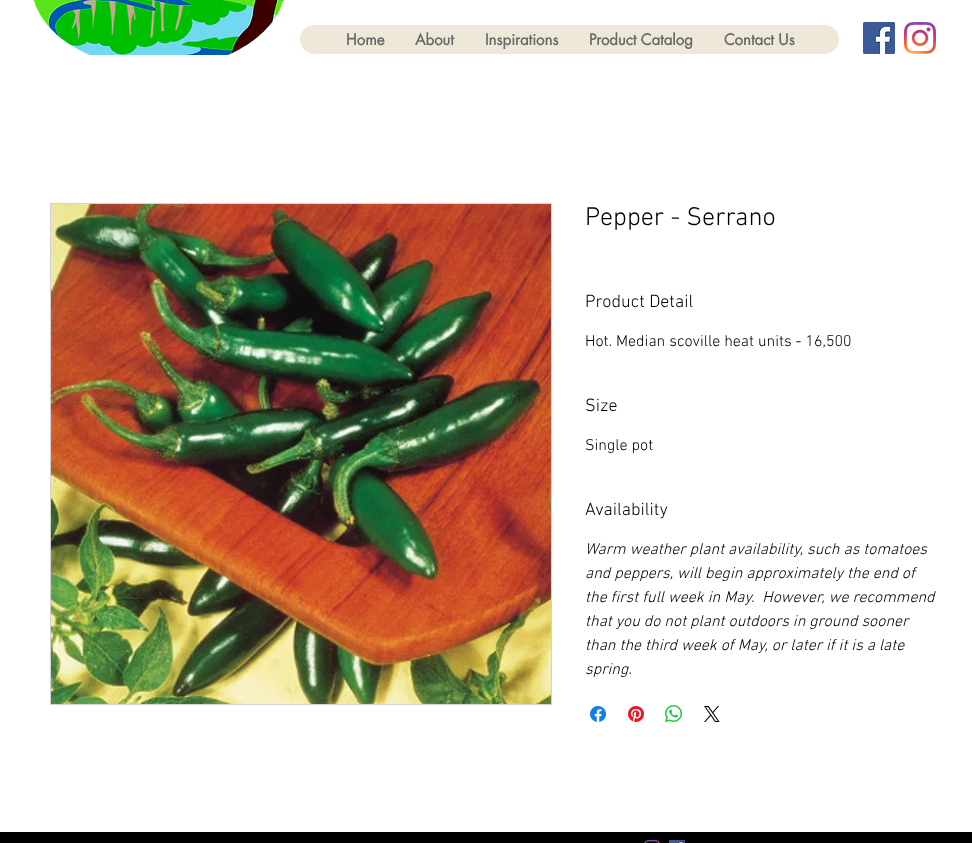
(async () => {
const canvas = document.querySelector("canvas")
canvas.width = 972
canvas.height = 843
const c = canvas.getContext("2d")
c.miterLimit = 4
c.fontKerning = "normal"
function T(s,x,y){c.fillText(s,x,y)}
function R(x,y,w,h){c.fillRect(x,y,w,h)}
function Q(x,y,w,h,r){c.beginPath();c.roundRect(x,y,w,h,r);c.fill()}
async function I(src,x,y,w,h){const img=new Image();img.src=src;await img.decode();c.drawImage(img,x,y,w,h)}
c.fillStyle="#fff"
R(0,0,972,843)
await I("1.png",33,0,251,55)
c.fillStyle="#eee8d8"
Q(300,25,539,29,14.5)
c.font="bold 15px futura"
c.fillStyle="#696969"
T("Home",346,45)
T("About",415,45)
T("Inspirations",485,45)
T("Product Catalog",589,45)
T("Contact Us",724,45)
await I("2.png",863,22,32,32)
await I("3.png",904,22,32,32)
c.strokeStyle="#d4d0d3"
c.strokeRect(50.5,203.5,501,501)
await I("4.png",51,204,500,500)
c.font="300 26px 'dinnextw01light'"
c.fillStyle="#000"
T("Pepper - Serrano",585,225)
c.font="300 18px 'dinnextw01light'"
T("Product Detail",585,307)
c.font="300 16px 'dinnextw01light'"
T("Hot. Median scoville heat units - 16,500",585,346)
c.font="300 18px 'dinnextw01light'"
T("Size",585,411)
c.font="300 16px 'dinnextw01light'"
T("Single pot",585,450)
c.font="300 18px 'dinnextw01light'"
T("Availability",585,515)
c.font="italic 300 16px 'dinnextw01light'"
T("Warm weather plant availability, such as tomatoes",585,554)
T("and peppers, will begin approximately the end of",585,578)
T("the first full week in May.  However, we recommend",585,602)
T("that you do not plant outdoors in ground sooner",585,626)
T("than the third week of May, or later if it is a late",585,650)
T("spring.",585,674)
await I("5.png",590,706,16,16)
await I("6.png",628,706,16,16)
await I("7.png",665,705,17,17)
await I("8.png",704,706,16,16)
R(0,832,972,11)
await I("9.png",644,840,16,3)
await I("10.png",669,840,16,3)
})()
